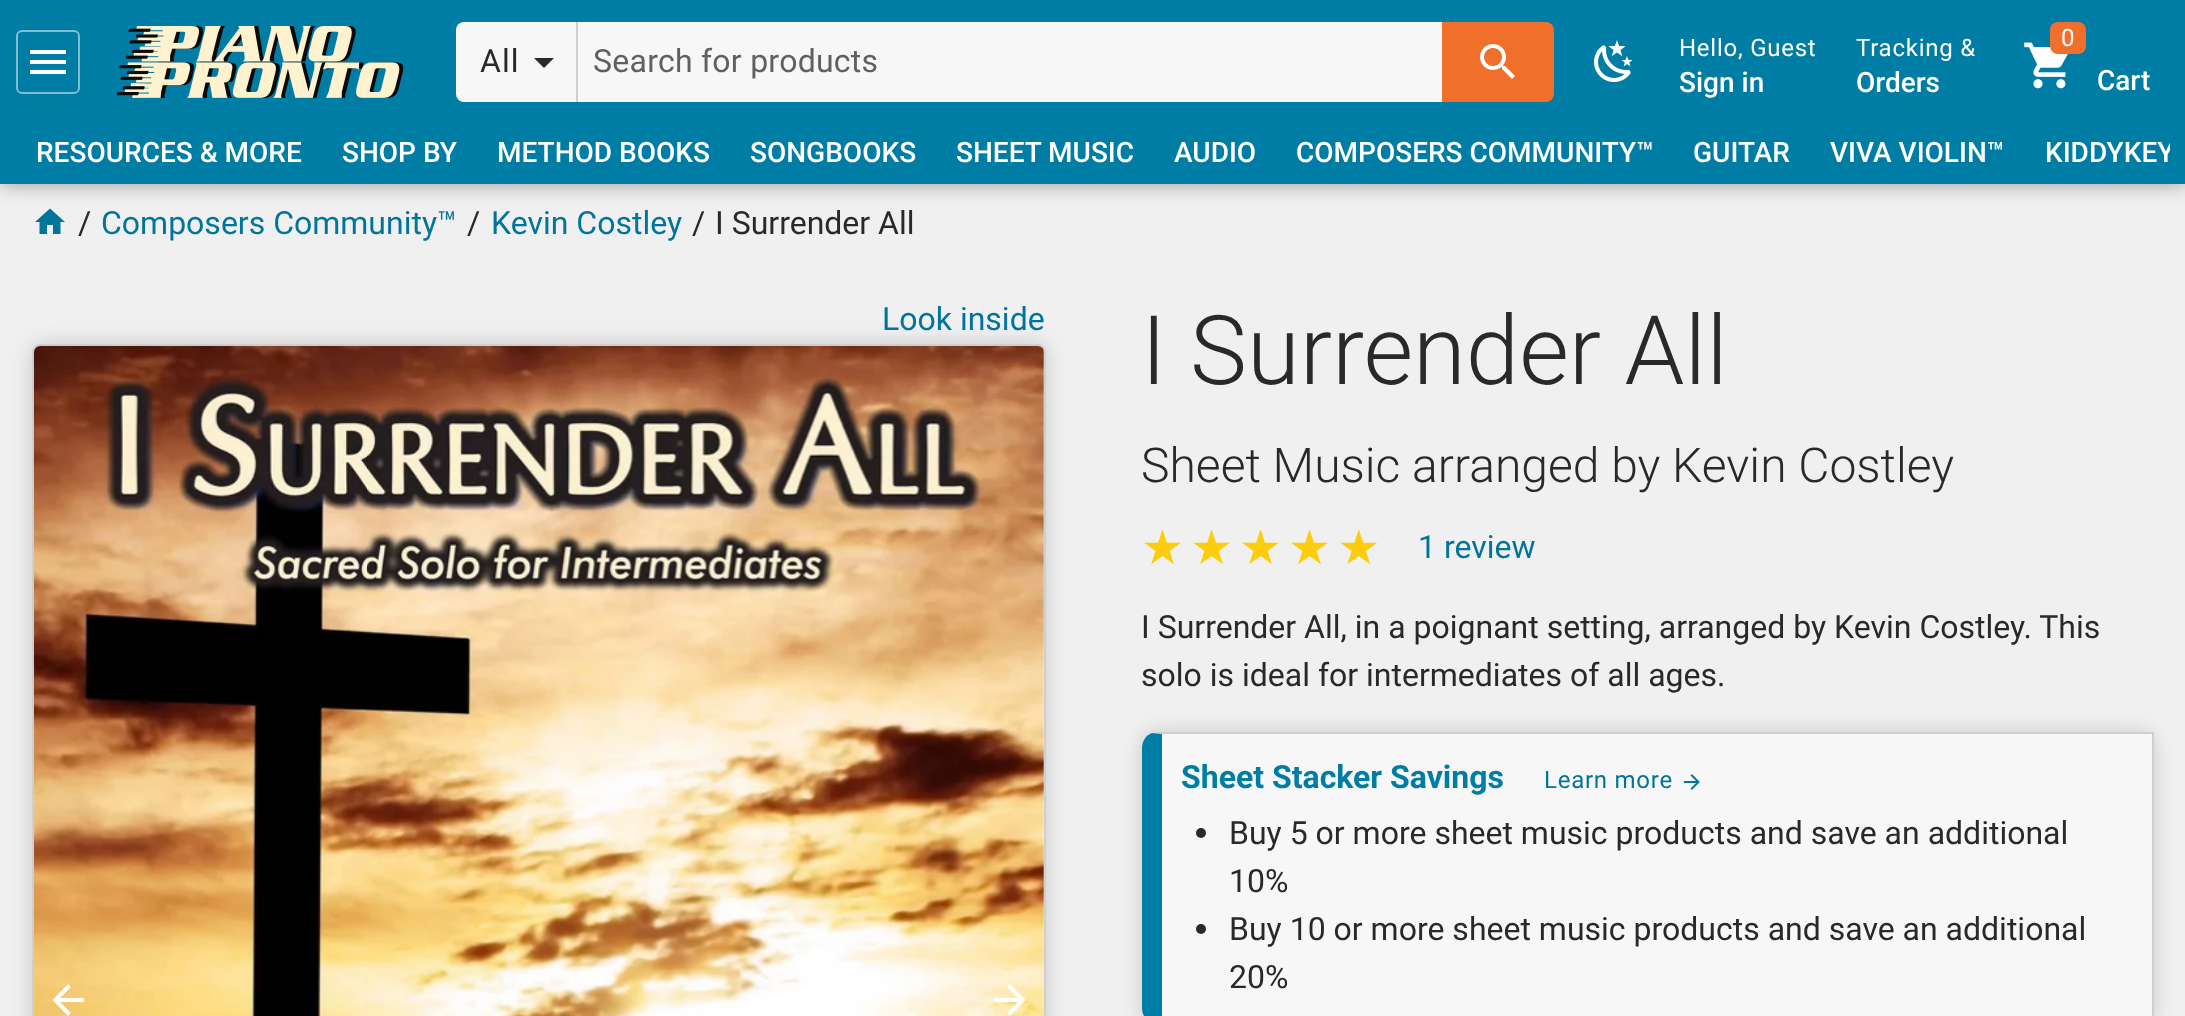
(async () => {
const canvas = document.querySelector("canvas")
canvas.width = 2185
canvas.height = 1016
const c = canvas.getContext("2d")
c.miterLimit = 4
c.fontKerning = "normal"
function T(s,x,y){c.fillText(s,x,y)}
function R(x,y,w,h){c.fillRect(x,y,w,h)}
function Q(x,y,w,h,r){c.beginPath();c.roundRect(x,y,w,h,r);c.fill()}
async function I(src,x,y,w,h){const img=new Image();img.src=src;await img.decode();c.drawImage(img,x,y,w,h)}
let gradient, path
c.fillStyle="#f0f0f0"
R(0,0,2185,1016)
await I("6.png",35,208,30,26)
c.fillStyle="#0000005c"
c.filter="blur(10px)"
c.beginPath()
c.rect(0,0,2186,184)
c.fill()
c.filter="none"
c.fillStyle="#007da5"
R(0,0,2185,184)
c.beginPath()
c.roundRect(17,31,62,62,5)
c.strokeStyle="#80bed2"
c.lineWidth=2
c.stroke()
await I("1.png",30,50,36,24)
await I("2.png",116,26,288,72)
c.fillStyle="#f7f7f7"
c.beginPath()
c.roundRect(456,22,122,80,[8,0,0,8])
c.fill()
c.fillStyle="#cfcfcf"
R(576,22,2,80)
c.letterSpacing="1px"
c.font="32px Roboto"
c.fillStyle="#292929"
T("All",480,72)
path = new Path2D("M534 58l10 10l10-10z")
c.fill(path)
c.fillStyle="#f7f7f7"
R(578,22,864,80)
c.letterSpacing="0.25px"
c.fillStyle="#606060"
T("Search for products",593,72)
c.fillStyle="#f0702b"
c.beginPath()
c.roundRect(1442,22,112,80,[0,8,8,0])
c.fill()
await I("3.png",1480,44,35,35)
await I("4.png",1594,40,39,42)
c.letterSpacing="0.75px"
c.font="24px Roboto"
c.fillStyle="#fff"
T("Hello, Guest",1679,56)
c.letterSpacing="0px"
c.font="500 28px Roboto"
T("Sign in",1679,92)
c.letterSpacing="0.75px"
c.font="24px Roboto"
T("Tracking &",1856,56)
c.letterSpacing="0px"
c.font="500 28px Roboto"
T("Orders",1856,92)
await I("5.png",2024,42,44,47)
c.fillStyle="#f0702b"
Q(2050,22,36,32,8)
c.font="24px Roboto"
c.fillStyle="#fff"
T("0",2061,46)
c.font="500 28px Roboto"
T("Cart",2097,90)
T("RESOURCES & MORE",36,162)
T("SHOP BY",342,162)
T("METHOD BOOKS",497,162)
T("SONGBOOKS",750,162)
T("SHEET MUSIC",956,162)
T("AUDIO",1174,162)
T("COMPOSERS COMMUNITY™",1296,162)
T("GUITAR",1693,162)
T("VIVA VIOLIN™",1830,162)
c.save()
c.beginPath()
c.rect(16,120,2154,64)
c.clip()
T("KIDDYKEY",2045,162)
c.restore()
c.font="32px Roboto"
c.fillStyle="#292929"
T("/",78,234)
c.fillStyle="#00759b"
T("Composers Community™",101,234)
c.fillStyle="#292929"
T("/",467,234)
c.fillStyle="#00759b"
T("Kevin Costley",491,234)
c.fillStyle="#292929"
T("/",692,234)
T("I Surrender All",715,234)
c.fillStyle="#00759b"
T("Look inside",882,330)
c.fillStyle="#00000029"
c.filter="blur(10px)"
c.beginPath()
c.roundRect(32,344,1014,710,8)
c.fill()
c.filter="none"
c.fillStyle="#f7f7f7"
Q(32,344,1014,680,8)
c.beginPath()
c.roundRect(33,345,1012,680,7)
c.strokeStyle="#00000029"
c.stroke()
await I("7.png",34,346,1010,670)
c.fillStyle="#fff"
path = new Path2D("M84 998v4h-24l11 11l-3 3l-15.5-16l15.5-16l3 3l-11 11z")
c.fill(path)
path = new Path2D("M994 998v4h24l-11 11l3 3l15.5-16l-15.5-16l-3 3l11 11z")
c.fill(path)
c.font="300 96px Roboto"
c.fillStyle="#292929"
T("I Surrender All",1141,384)
c.font="300 48px Roboto"
T("Sheet Music arranged by Kevin Costley",1141,482)
c.letterSpacing="6px"
c.font="48px DejaVu Sans"
gradient = c.createLinearGradient(1141,548,1386,548)
gradient.addColorStop(1,"#fdcc0d")
gradient.addColorStop(1,"#ccc")
c.fillStyle = gradient
T("★★★★★",1141,564)
c.letterSpacing="0px"
c.font="32px Roboto"
c.fillStyle="#00759b"
T("1 review",1418,558)
c.fillStyle="#292929"
T("I Surrender All, in a poignant setting, arranged by Kevin Costley. This",1141,638)
T("solo is ideal for intermediates of all ages.",1141,686)
c.fillStyle="#00000029"
c.filter="blur(10px)"
c.beginPath()
c.roundRect(1142,732,1012,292,16)
c.fill()
c.filter="none"
c.fillStyle="#f7f7f7"
path = new Path2D("M1158 732h996v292h-996c-9 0-16-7-16-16v-260c0-9 7-16 16-16z")
c.fill(path)
c.fillStyle="#cfcfcf"
path = new Path2D("M1158 732l-6 1l10 1h990l2-2z")
c.fill(path)
c.fillStyle="#00000029"
path = new Path2D("M2154 732l-2 2v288l2 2z")
c.fill(path)
c.fillStyle="#007da5"
path = new Path2D("M1162 734l-10-1c-6 2-10 8-10 15v260c0 7 4 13 10 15l10-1z")
c.fill(path)
c.font="bold 32px Roboto"
T("Sheet Stacker Savings",1181,788)
c.letterSpacing="0.75px"
c.font="24px Roboto"
c.fillStyle="#00759b"
T("Learn more",1544,788)
await I("8.png",1684,774,16,16)
c.fillStyle="#292929"
c.beginPath()
c.arc(1201,833,5,0,7)
c.fill()
c.letterSpacing="0px"
c.font="32px Roboto"
T("Buy 5 or more sheet music products and save an additional",1229,844)
T("10%",1229,892)
c.beginPath()
c.arc(1201,929,5,0,7)
c.fill()
T("Buy 10 or more sheet music products and save an additional",1229,940)
T("20%",1229,988)
})()
